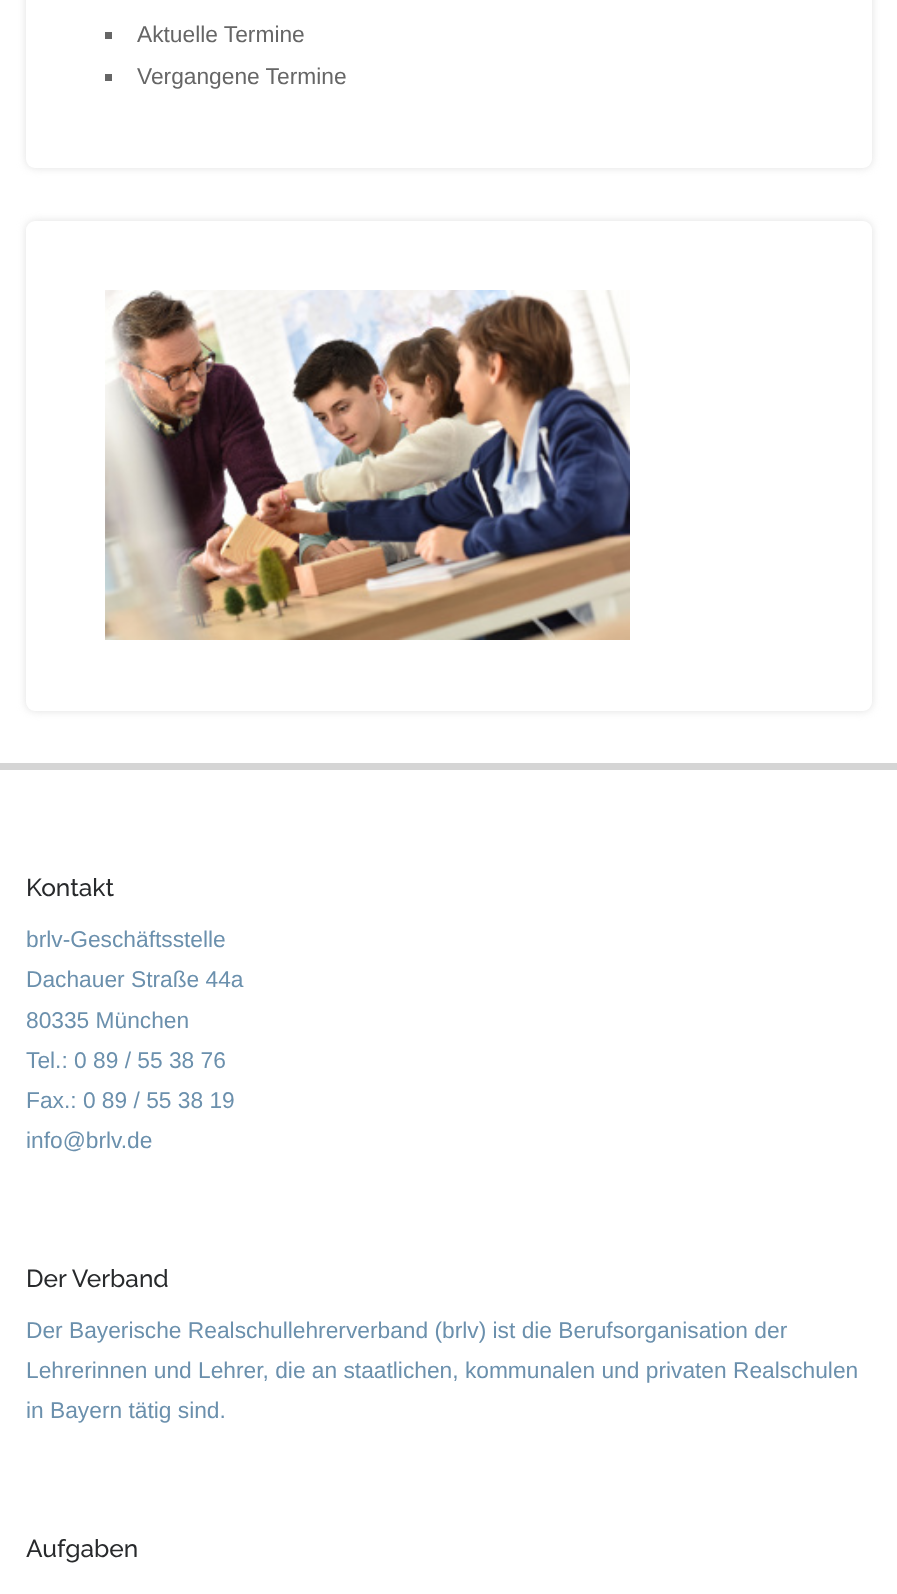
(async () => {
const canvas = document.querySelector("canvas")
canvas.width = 897
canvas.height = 1594
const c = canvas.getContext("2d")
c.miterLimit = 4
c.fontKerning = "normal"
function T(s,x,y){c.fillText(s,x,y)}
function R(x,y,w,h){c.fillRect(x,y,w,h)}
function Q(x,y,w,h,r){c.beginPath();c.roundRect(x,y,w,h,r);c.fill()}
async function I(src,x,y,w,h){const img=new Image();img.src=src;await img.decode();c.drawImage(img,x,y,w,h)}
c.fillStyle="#fff"
R(0,0,897,1594)
c.fillStyle="#e0e0e0"
c.filter="blur(4.5px)"
c.beginPath()
c.roundRect(26,-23,846,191,9)
c.fill()
c.filter="none"
c.fillStyle="#fff"
Q(26,-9,846,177,9)
c.fillStyle="#666"
R(105,32,7,7)
c.font="22.75px Liberation Sans"
T("Aktuelle Termine",137,42)
R(105,74,7,7)
T("Vergangene Termine",137,84)
c.fillStyle="#e0e0e0"
c.filter="blur(4.5px)"
c.beginPath()
c.roundRect(26,221,846,490,9)
c.fill()
c.filter="none"
c.fillStyle="#fff"
Q(26,221,846,490,9)
await I("1.png",105,290,525,350)
c.fillStyle="#d5d5d5"
R(0,763,897,7)
c.font="500 24.5px Raleway"
c.fillStyle="#282a2c"
T("Kontakt",26,896)
c.font="22.75px Liberation Sans"
c.fillStyle="#6b90ad"
T("brlv-Geschäftsstelle",26,947)
T("Dachauer Straße 44a",26,987)
T("80335 München",26,1028)
T("Tel.: 0 89 / 55 38 76",26,1068)
T("Fax.: 0 89 / 55 38 19",26,1108)
T("info@brlv.de",26,1148)
c.font="500 24.5px Raleway"
c.fillStyle="#282a2c"
T("Der Verband",26,1287)
c.font="22.75px Liberation Sans"
c.fillStyle="#6b90ad"
T("Der Bayerische Realschullehrerverband (brlv) ist die Berufsorganisation der",26,1338)
T("Lehrerinnen und Lehrer, die an staatlichen, kommunalen und privaten Realschulen",26,1378)
T("in Bayern tätig sind.",26,1418)
c.font="500 24.5px Raleway"
c.fillStyle="#282a2c"
T("Aufgaben",26,1557)
})()
